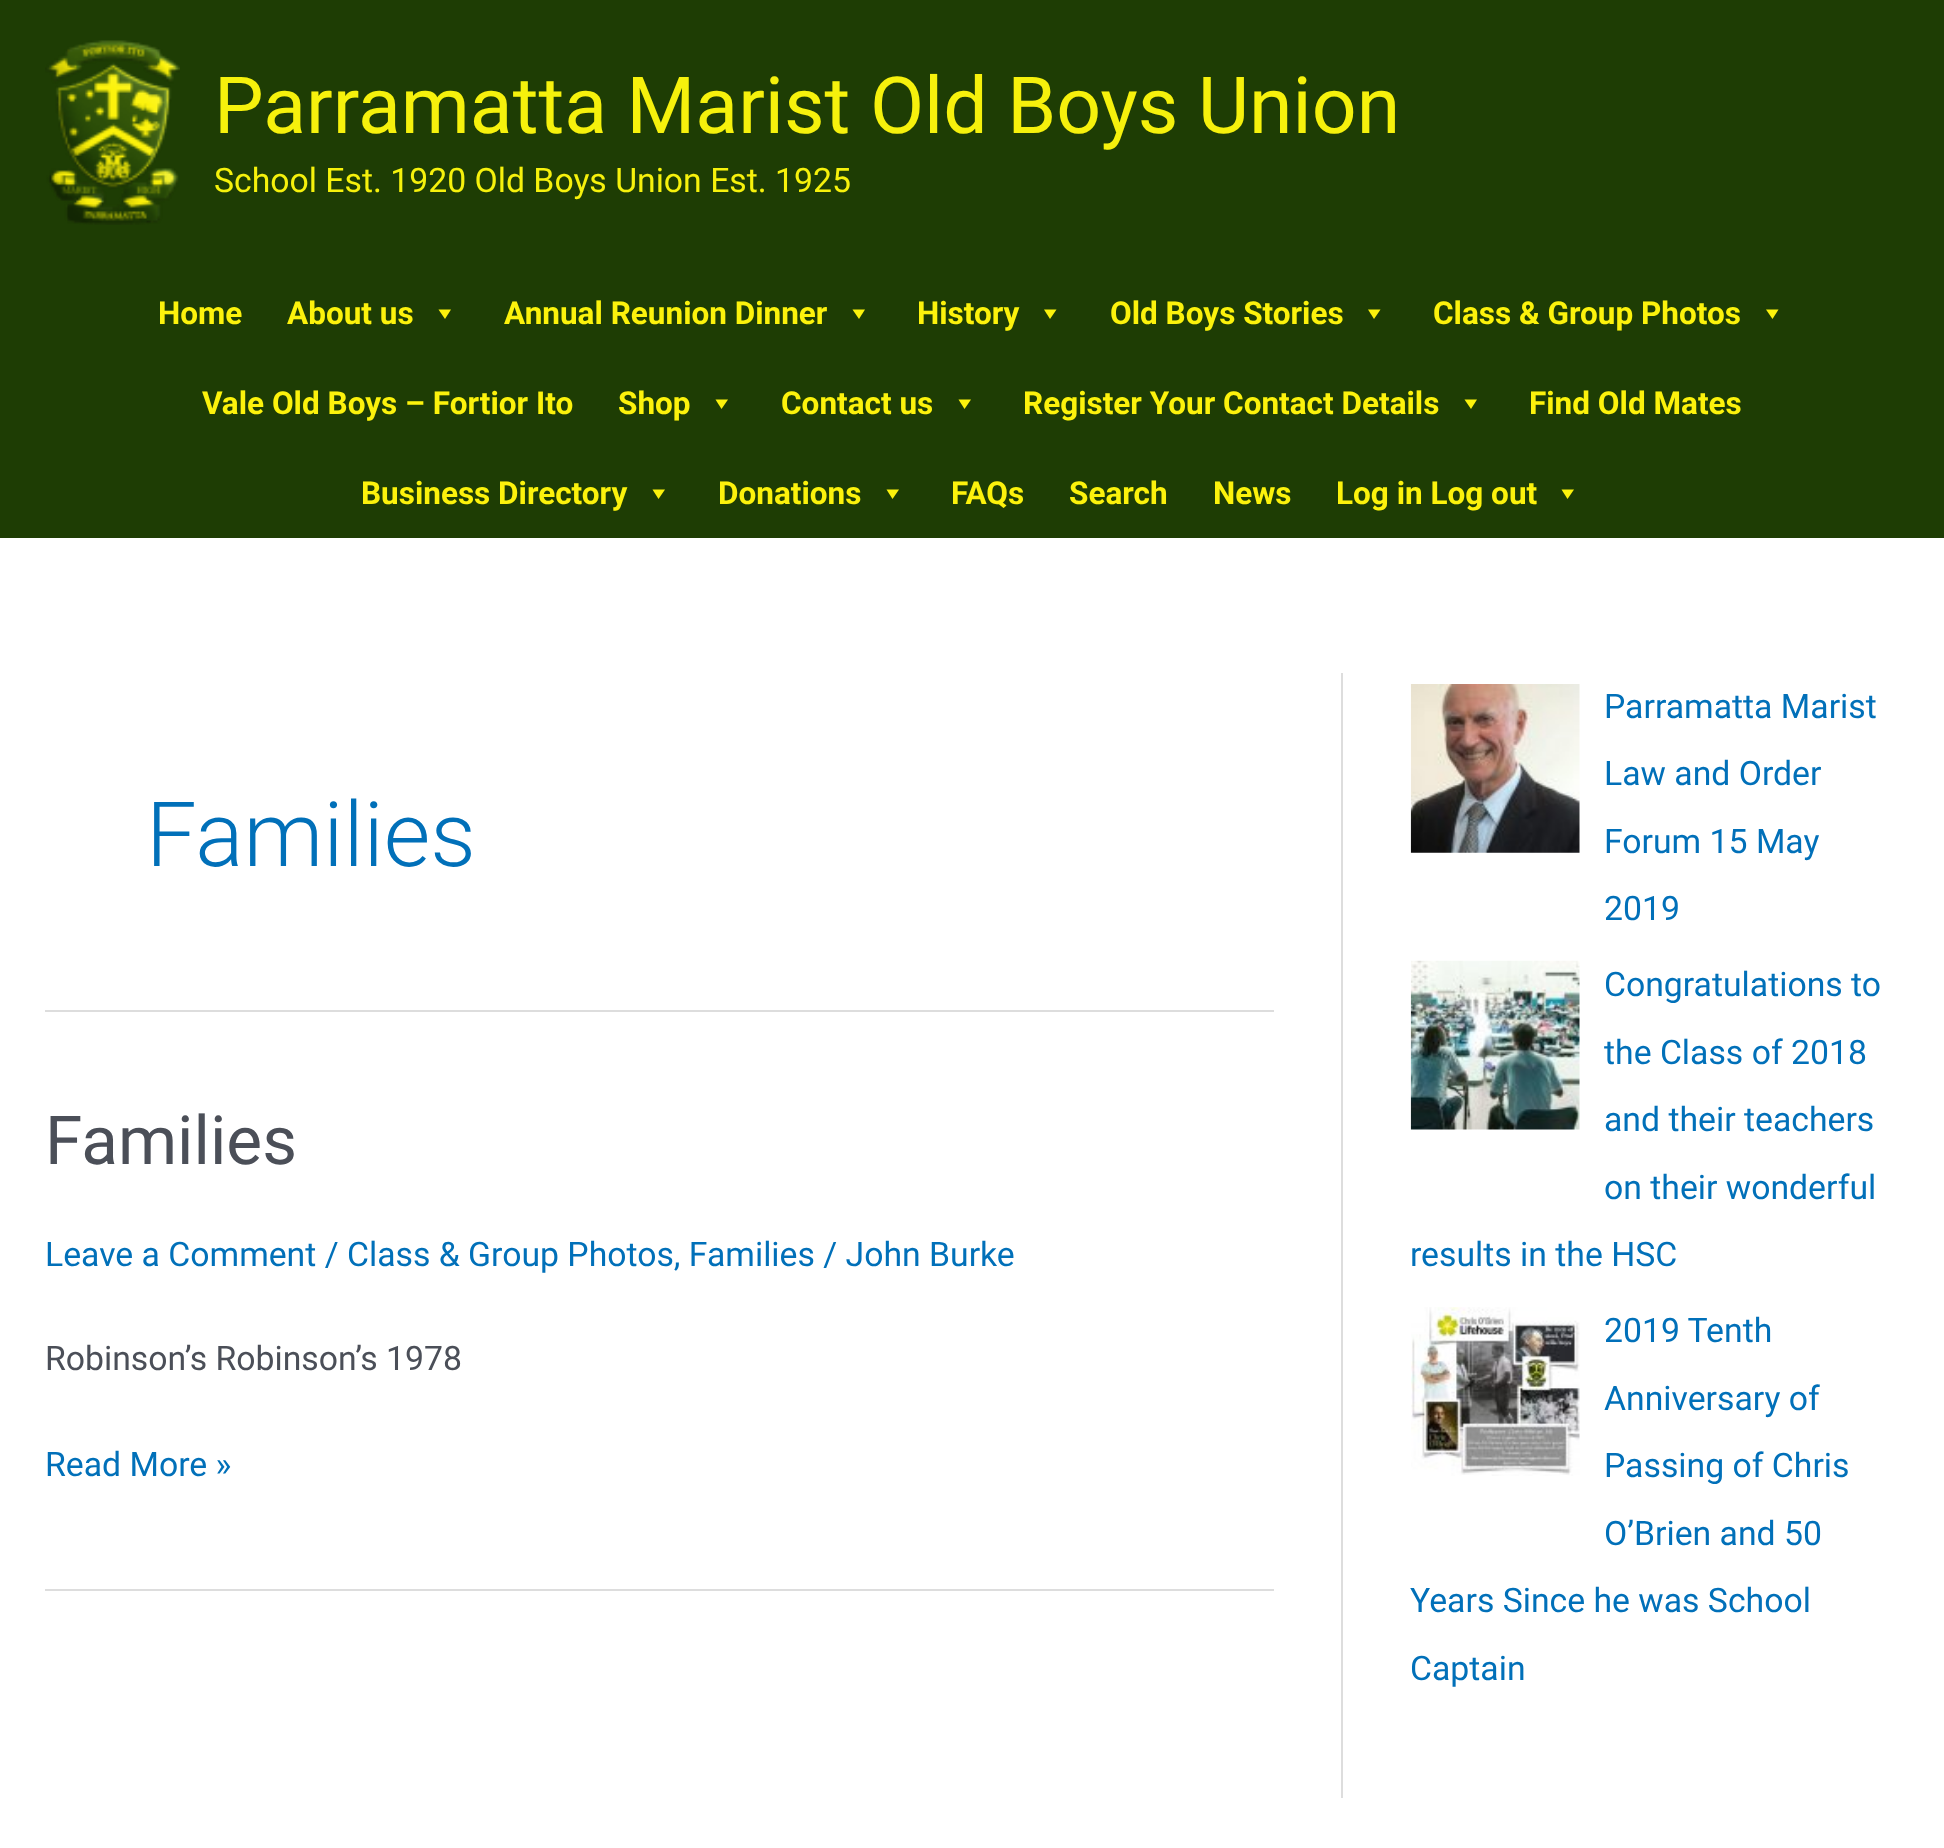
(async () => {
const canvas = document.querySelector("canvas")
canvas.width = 1944
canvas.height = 1848
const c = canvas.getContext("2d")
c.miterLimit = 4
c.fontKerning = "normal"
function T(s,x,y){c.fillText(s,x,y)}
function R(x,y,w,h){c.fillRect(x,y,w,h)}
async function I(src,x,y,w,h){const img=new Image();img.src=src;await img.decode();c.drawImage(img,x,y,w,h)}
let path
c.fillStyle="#fff"
R(0,0,1944,1848)
c.fillStyle="#1e3d04"
R(0,0,1944,538)
await I("1.png",45,40,135,185)
c.font="78.75px Roboto"
c.fillStyle="#f6f10c"
T("Parramatta Marist Old Boys Union",214,133)
c.font="33.75px Roboto"
T("School Est. 1920 Old Boys Union Est. 1925",214,192)
c.font="bold 31.5px Roboto"
c.fillStyle="#fcf20c"
T("Home",158,324)
T("About us",287,324)
path = new Path2D("M451 309.5l-6 9.5l-6.5-9.5z")
c.fill(path)
T("Annual Reunion Dinner",504,324)
path = new Path2D("M865 309.5l-6 9.5l-6.5-9.5z")
c.fill(path)
T("History",917,324)
path = new Path2D("M1056.5 309.5l-6.5 9.5l-6-9.5z")
c.fill(path)
T("Old Boys Stories",1110,324)
path = new Path2D("M1380.5 309.5l-6.5 9.5l-6-9.5z")
c.fill(path)
T("Class & Group Photos",1433,324)
path = new Path2D("M1778.5 309.5l-6 9.5l-6.5-9.5z")
c.fill(path)
T("Vale Old Boys – Fortior Ito",202,414)
T("Shop",618,414)
path = new Path2D("M728 399.5l-6.5 9.5l-6-9.5z")
c.fill(path)
T("Contact us",781,414)
path = new Path2D("M971 399.5l-6.5 9.5l-6-9.5z")
c.fill(path)
T("Register Your Contact Details",1023,414)
path = new Path2D("M1477 399.5l-6 9.5l-6.5-9.5z")
c.fill(path)
T("Find Old Mates",1529,414)
T("Business Directory",361,504)
path = new Path2D("M665 489.5l-6.5 9.5l-6-9.5z")
c.fill(path)
T("Donations",718,504)
path = new Path2D("M899 489.5l-6.5 9.5l-6-9.5z")
c.fill(path)
T("FAQs",951,504)
T("Search",1069,504)
T("News",1213,504)
T("Log in Log out",1336,504)
path = new Path2D("M1574 489.5l-6.5 9.5l-6-9.5z")
c.fill(path)
c.fillStyle="#ddd"
R(45,1010,1229,2)
c.font="300 90px Roboto"
c.fillStyle="#0170b9"
T("Families",146,866)
c.fillStyle="#ddd"
R(45,1589,1229,2)
c.font="67.5px Roboto"
c.fillStyle="#4b4f58"
T("Families",45,1164)
c.font="33.75px Roboto"
c.fillStyle="#0170b9"
T("Leave a Comment / Class & Group Photos, Families / John Burke",45,1266)
c.fillStyle="#4b4f58"
T("Robinson’s Robinson’s 1978",45,1370)
c.fillStyle="#0170b9"
T("Read More »",45,1476)
c.fillStyle="#ddd"
R(1341,673,2,1125)
await I("2.png",1410,684,170,169)
c.fillStyle="#0170b9"
T("Parramatta Marist",1604,718)
T("Law and Order",1604,785)
T("Forum 15 May",1604,853)
T("2019",1604,920)
await I("3.png",1410,960,170,170)
T("Congratulations to",1604,996)
T("the Class of 2018",1604,1064)
T("and their teachers",1604,1131)
T("on their wonderful",1604,1199)
T("results in the HSC",1410,1266)
await I("4.png",1411,1307,169,169)
T("2019 Tenth",1604,1342)
T("Anniversary of",1604,1410)
T("Passing of Chris",1604,1477)
T("O’Brien and 50",1604,1545)
T("Years Since he was School",1410,1612)
T("Captain",1410,1680)
})()
